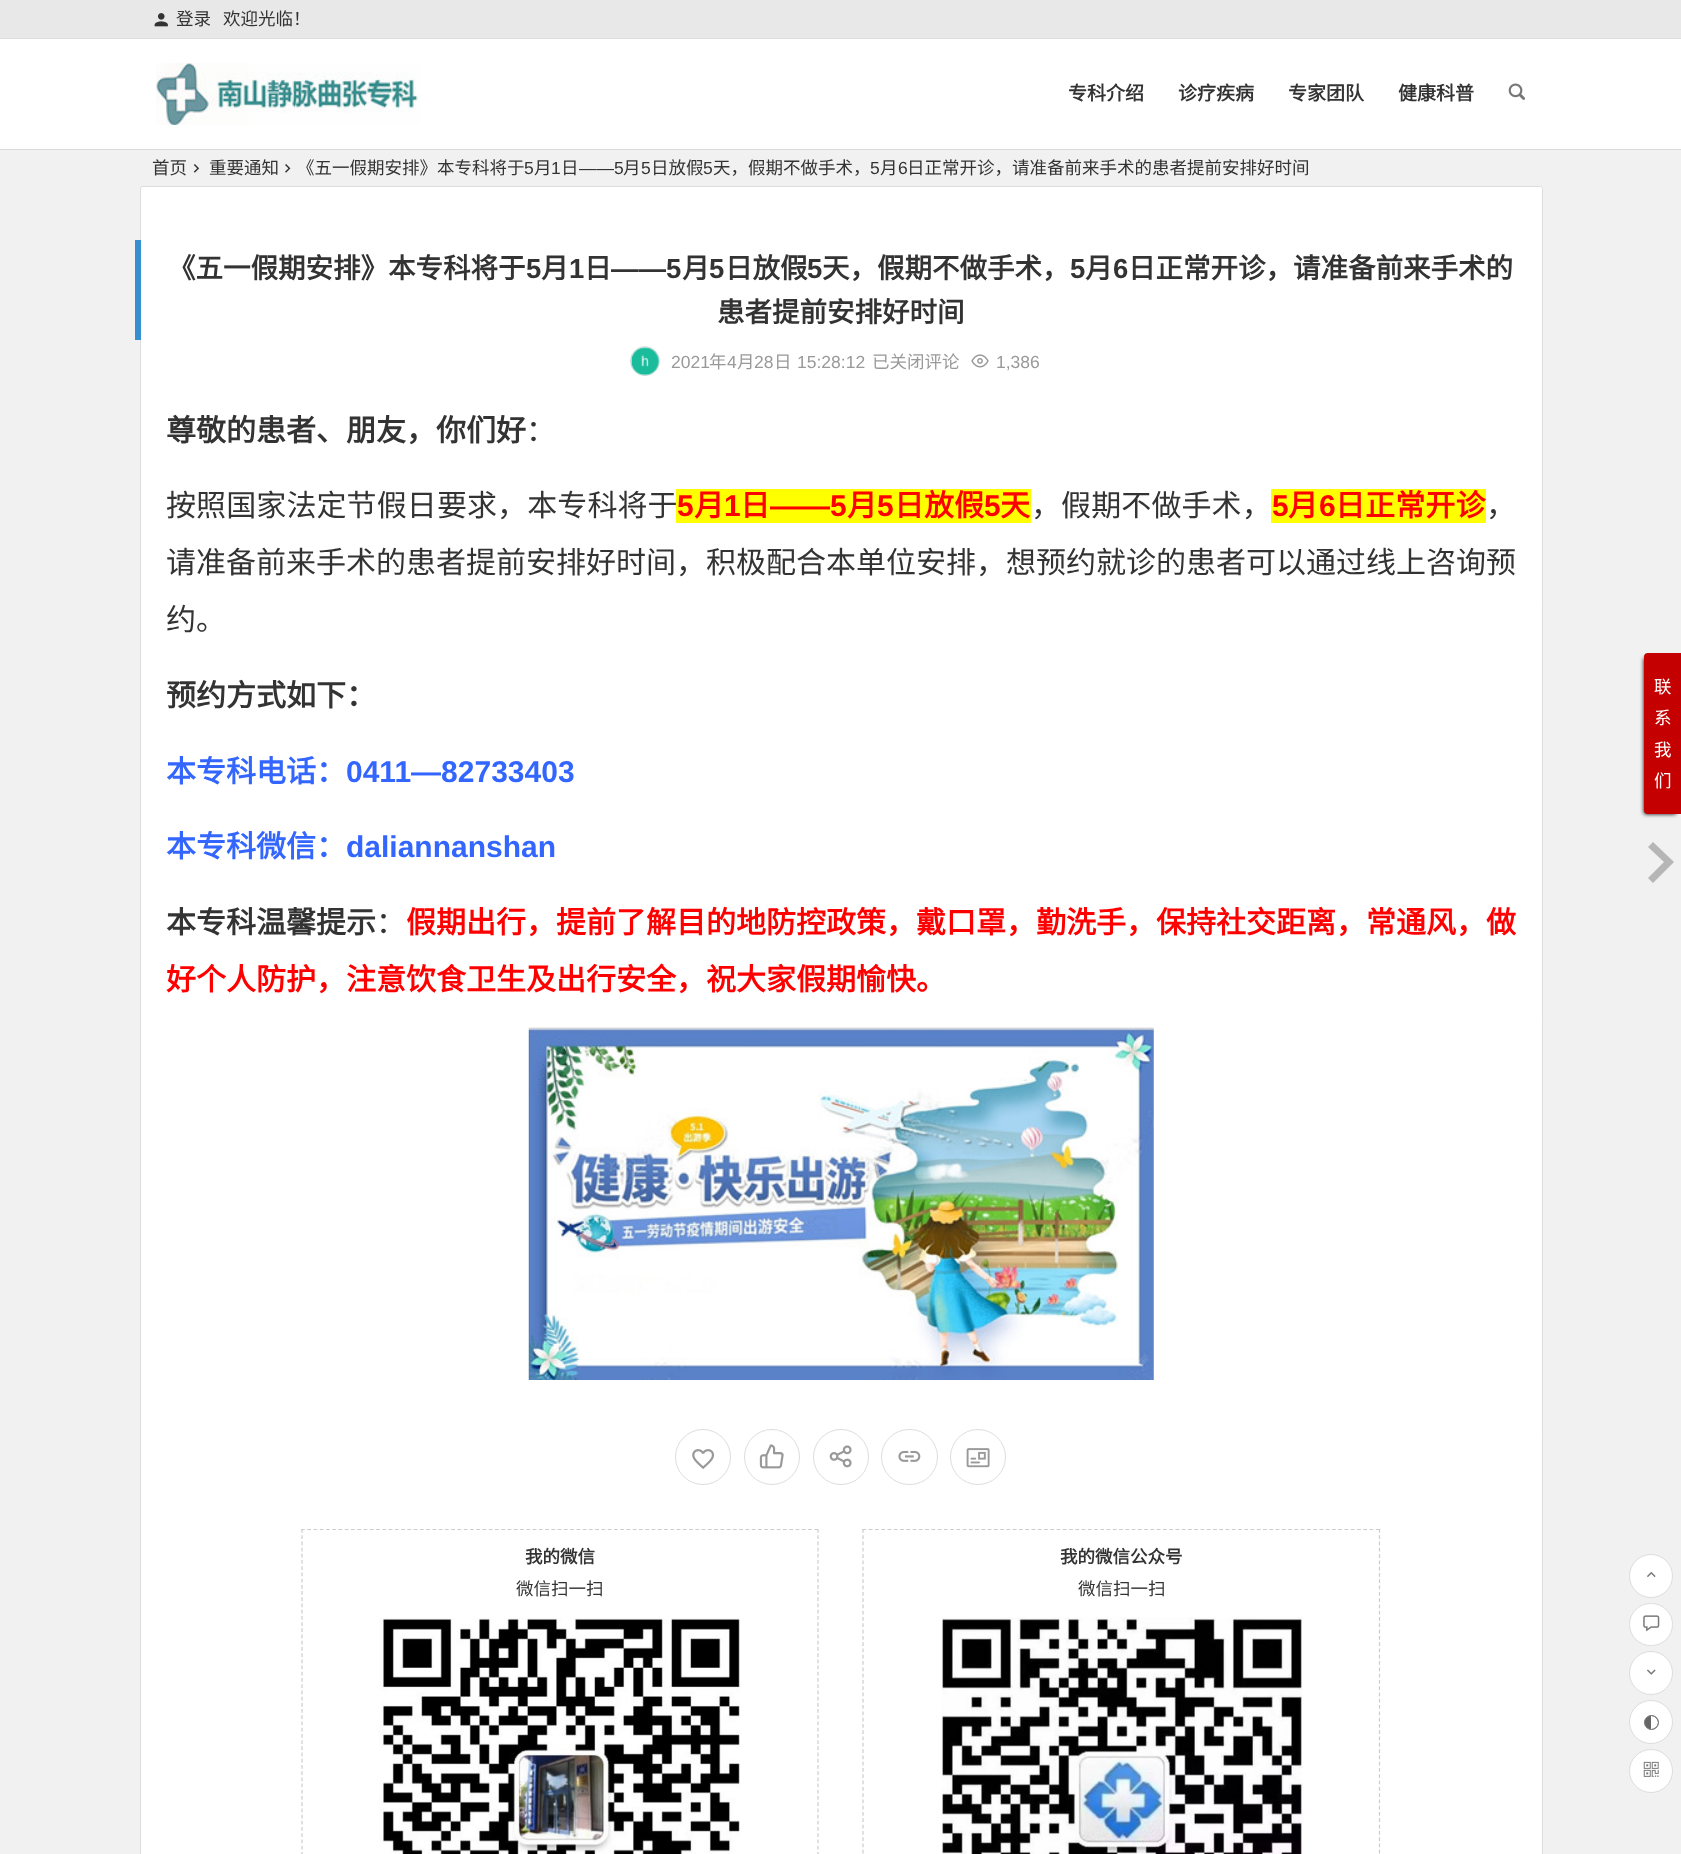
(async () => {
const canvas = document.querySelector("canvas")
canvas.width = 1681
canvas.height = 1854
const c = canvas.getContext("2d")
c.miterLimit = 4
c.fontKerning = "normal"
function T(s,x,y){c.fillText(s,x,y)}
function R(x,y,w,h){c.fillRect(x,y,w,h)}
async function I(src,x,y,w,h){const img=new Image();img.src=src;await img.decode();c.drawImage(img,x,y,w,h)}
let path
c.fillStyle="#f1f1f1"
R(0,0,1681,1854)
c.fillStyle="#e8e8e8"
R(0,0,1681,38)
c.fillStyle="#dedede"
R(0,38,1681,1)
await I("1.png",154,13,14,14)
c.font="17.5px Noto Sans CJK SC"
c.fillStyle="#333"
T("登录",176,25)
T("欢迎光临！",223,25)
c.fillStyle="#d9d9d9"
R(0,149,1681,1)
c.fillStyle="#fff"
R(0,39,1681,110)
await I("2.png",156,63,265,62)
c.font="bold 19px Noto Sans CJK SC"
c.fillStyle="#333"
T("专科介绍",1068,100)
T("诊疗疾病",1178,100)
T("专家团队",1288,100)
T("健康科普",1398,100)
await I("3.png",1508,83,18,17)
c.font="17.5px Noto Sans CJK SC"
T("首页",152,174)
await I("4.png",193,164,7,9)
T("重要通知",209,174)
await I("5.png",285,164,6,9)
T("《五一假期安排》本专科将于",297,174)
c.font="17.5px Liberation Sans"
T("5",524,174)
c.font="17.5px Noto Sans CJK SC"
T("月",534,174)
c.font="17.5px Liberation Sans"
T("1",551,174)
c.font="17.5px Noto Sans CJK SC"
T("日",561,174)
c.font="17.5px Liberation Sans"
T("——5",579,174)
c.font="17.5px Noto Sans CJK SC"
T("月",623,174)
c.font="17.5px Liberation Sans"
T("5",641,174)
c.font="17.5px Noto Sans CJK SC"
T("日放假",651,174)
c.font="17.5px Liberation Sans"
T("5",703,174)
c.font="17.5px Noto Sans CJK SC"
T("天，假期不做手术，",713,174)
c.font="17.5px Liberation Sans"
T("5",870,174)
c.font="17.5px Noto Sans CJK SC"
T("月",880,174)
c.font="17.5px Liberation Sans"
T("6",898,174)
c.font="17.5px Noto Sans CJK SC"
T("日正常开诊，请准备前来手术的患者提前安排好时间",907,174)
c.fillStyle="#fff"
c.beginPath()
c.roundRect(140.5,186.5,1402,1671,2)
c.fill()
c.strokeStyle="#ddd"
c.stroke()
c.fillStyle="#3690cf"
R(135,240,6,100)
c.font="bold 27.5px Noto Sans CJK SC"
c.fillStyle="#333"
T("《五一假期安排》本专科将于",168,278)
c.font="bold 27.5px Liberation Sans"
T("5",526,278)
c.font="bold 27.5px Noto Sans CJK SC"
T("月",541,278)
c.font="bold 27.5px Liberation Sans"
T("1",569,278)
c.font="bold 27.5px Noto Sans CJK SC"
T("日",584,278)
c.font="bold 27.5px Liberation Sans"
T("——5",611,278)
c.font="bold 27.5px Noto Sans CJK SC"
T("月",682,278)
c.font="bold 27.5px Liberation Sans"
T("5",709,278)
c.font="bold 27.5px Noto Sans CJK SC"
T("日放假",725,278)
c.font="bold 27.5px Liberation Sans"
T("5",807,278)
c.font="bold 27.5px Noto Sans CJK SC"
T("天，假期不做手术，",822,278)
c.font="bold 27.5px Liberation Sans"
T("5",1070,278)
c.font="bold 27.5px Noto Sans CJK SC"
T("月",1085,278)
c.font="bold 27.5px Liberation Sans"
T("6",1113,278)
c.font="bold 27.5px Noto Sans CJK SC"
T("日正常开诊，请准备前来手术的",1128,278)
T("患者提前安排好时间",717,322)
c.beginPath()
c.arc(645,361,14.5,0,7)
c.stroke()
await I("6.png",630,347,29,29)
c.font="17.5px Liberation Sans"
c.fillStyle="#999"
T("2021",671,368)
c.font="17.5px Noto Sans CJK SC"
T("年",709,368)
c.font="17.5px Liberation Sans"
T("4",727,368)
c.font="17.5px Noto Sans CJK SC"
T("月",737,368)
c.font="17.5px Liberation Sans"
T("28",754,368)
c.font="17.5px Noto Sans CJK SC"
T("日",774,368)
c.font="17.5px Liberation Sans"
T("15:28:12",797,368)
c.font="17.5px Noto Sans CJK SC"
T("已关闭评论",872,368)
await I("7.png",971,354,18,14)
c.font="17.5px Liberation Sans"
T("1,386",996,368)
c.font="bold 30px Noto Sans CJK SC"
c.fillStyle="#333"
T("尊敬的患者、朋友，你们好",166,441)
c.font="30px Noto Sans CJK SC"
T("：",526,441)
c.letterSpacing="0.1px"
T("按照国家法定节假日要求，本专科将于",166,516)
c.fillStyle="#ff0"
R(676,489,355,34)
c.letterSpacing="0px"
c.font="bold 30px Liberation Sans"
c.fillStyle="#f00"
T("5",677,516)
c.font="bold 30px Noto Sans CJK SC"
T("月",694,516)
c.font="bold 30px Liberation Sans"
T("1",724,516)
c.font="bold 30px Noto Sans CJK SC"
T("日",740,516)
c.font="bold 30px Liberation Sans"
T("——5",770,516)
c.font="bold 30px Noto Sans CJK SC"
T("月",847,516)
c.font="bold 30px Liberation Sans"
T("5",877,516)
c.font="bold 30px Noto Sans CJK SC"
T("日放假",894,516)
c.font="bold 30px Liberation Sans"
T("5",984,516)
c.font="bold 30px Noto Sans CJK SC"
T("天",1000,516)
c.letterSpacing="0.1px"
c.font="30px Noto Sans CJK SC"
c.fillStyle="#333"
T("，假期不做手术，",1031,516)
c.fillStyle="#ff0"
R(1271,489,215,34)
c.font="bold 30px Liberation Sans"
c.fillStyle="#f00"
T("5",1272,516)
c.font="bold 30px Noto Sans CJK SC"
T("月",1288,516)
c.font="bold 30px Liberation Sans"
T("6",1319,516)
c.font="bold 30px Noto Sans CJK SC"
T("日正常开诊",1335,516)
c.letterSpacing="0px"
c.font="30px Noto Sans CJK SC"
c.fillStyle="#333"
T("，",1486,516)
T("请准备前来手术的患者提前安排好时间，积极配合本单位安排，想预约就诊的患者可以通过线上咨询预",166,573)
T("约。",166,630)
c.font="bold 30px Noto Sans CJK SC"
T("预约方式如下：",166,706)
c.fillStyle="#36f"
T("本专科电话：",166,782)
c.font="bold 30px Liberation Sans"
T("0411—82733403",346,782)
c.font="bold 30px Noto Sans CJK SC"
T("本专科微信：",166,857)
c.font="bold 30px Liberation Sans"
T("daliannanshan",346,857)
c.font="bold 30px Noto Sans CJK SC"
c.fillStyle="#333"
T("本专科温馨提示",166,933)
c.font="30px Noto Sans CJK SC"
T("：",376,933)
c.font="bold 30px Noto Sans CJK SC"
c.fillStyle="#f00"
T("假期出行，提前了解目的地防控政策，戴口罩，勤洗手，保持社交距离，常通风，做",406,933)
T("好个人防护，注意饮食卫生及出行安全，祝大家假期愉快。",166,990)
await I("8.png",528,1027,626,353)
c.beginPath()
c.arc(703,1457,27.5,0,7)
c.stroke()
await I("9.png",692,1449,22,20)
c.beginPath()
c.arc(772,1457,27.5,0,7)
c.stroke()
await I("10.png",759,1444,25,25)
c.beginPath()
c.arc(841,1457,27.5,0,7)
c.stroke()
await I("11.png",829,1445,23,23)
c.beginPath()
c.roundRect(881.5,1429.5,56,55,27.5)
c.stroke()
await I("12.png",898,1450,23,12)
c.beginPath()
c.arc(978,1457,27.5,0,7)
c.stroke()
await I("13.png",966,1448,24,20)
path = new Path2D("M301 1529.5h518")
c.strokeStyle="#ccc"
c.lineWidth=1.2
c.setLineDash([3.75,2.51])
c.stroke(path)
path = new Path2D("M818 1529v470")
c.setLineDash([3.75,2.46])
c.stroke(path)
path = new Path2D("M302 1529v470")
c.stroke(path)
c.font="bold 17.5px Noto Sans CJK SC"
c.fillStyle="#333"
T("我的微信",525,1563)
c.font="17.5px Noto Sans CJK SC"
T("微信扫一扫",516,1595)
await I("14.png",379,1618,361,236)
path = new Path2D("M862.5 1529.5h517.5")
c.setLineDash([3.75,2.51])
c.stroke(path)
path = new Path2D("M1379.5 1529v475")
c.setLineDash([3.75,2.54])
c.stroke(path)
path = new Path2D("M863 1529v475")
c.stroke(path)
c.font="bold 17.5px Noto Sans CJK SC"
T("我的微信公众号",1060,1563)
c.font="17.5px Noto Sans CJK SC"
T("微信扫一扫",1078,1595)
await I("15.png",941,1617,362,237)
c.fillStyle="#b6b6b6"
path = new Path2D("M1648 878l16-16l-16-15l5-5l21 20l-21 21z")
c.fill(path)
c.fillStyle="#000"
c.filter="blur(2px)"
c.beginPath()
c.roundRect(1644,658,32,156,1)
c.fill()
c.filter="none"
c.fillStyle="#c40000"
c.beginPath()
c.roundRect(1644,653,37,161,[4,0,0,4])
c.fill()
c.fillStyle="#fff"
T("联",1654,693)
T("系",1654,724)
T("我",1654,756)
T("们",1654,787)
c.beginPath()
c.arc(1651,1576,21.5,0,7)
c.fill()
c.strokeStyle="#ddd"
c.lineWidth=1
c.setLineDash([])
c.stroke()
await I("16.png",1647,1571,9,7)
c.beginPath()
c.roundRect(1629.5,1603.5,43,42,21)
c.fill()
c.stroke()
await I("17.png",1643,1615,17,17)
c.beginPath()
c.arc(1651,1673,21.5,0,7)
c.fill()
c.stroke()
await I("18.png",1647,1669,9,6)
c.beginPath()
c.arc(1651,1722,21.5,0,7)
c.fill()
c.stroke()
c.fillStyle="#666"
c.beginPath()
c.arc(1651.5,1722.5,7,0,7)
c.fill()
c.strokeStyle="#777"
c.stroke()
c.save()
c.beginPath()
c.roundRect(1645,1716,13,13,6.5)
c.clip()
c.fillStyle="#fff"
c.beginPath()
c.roundRect(1651,1716,7,13,[0,6.5,6.5,0])
c.fill()
c.restore()
c.fillStyle="#fff"
c.beginPath()
c.arc(1651,1771,21.5,0,7)
c.fill()
c.strokeStyle="#ddd"
c.stroke()
await I("19.png",1643,1761,16,16)
})()
